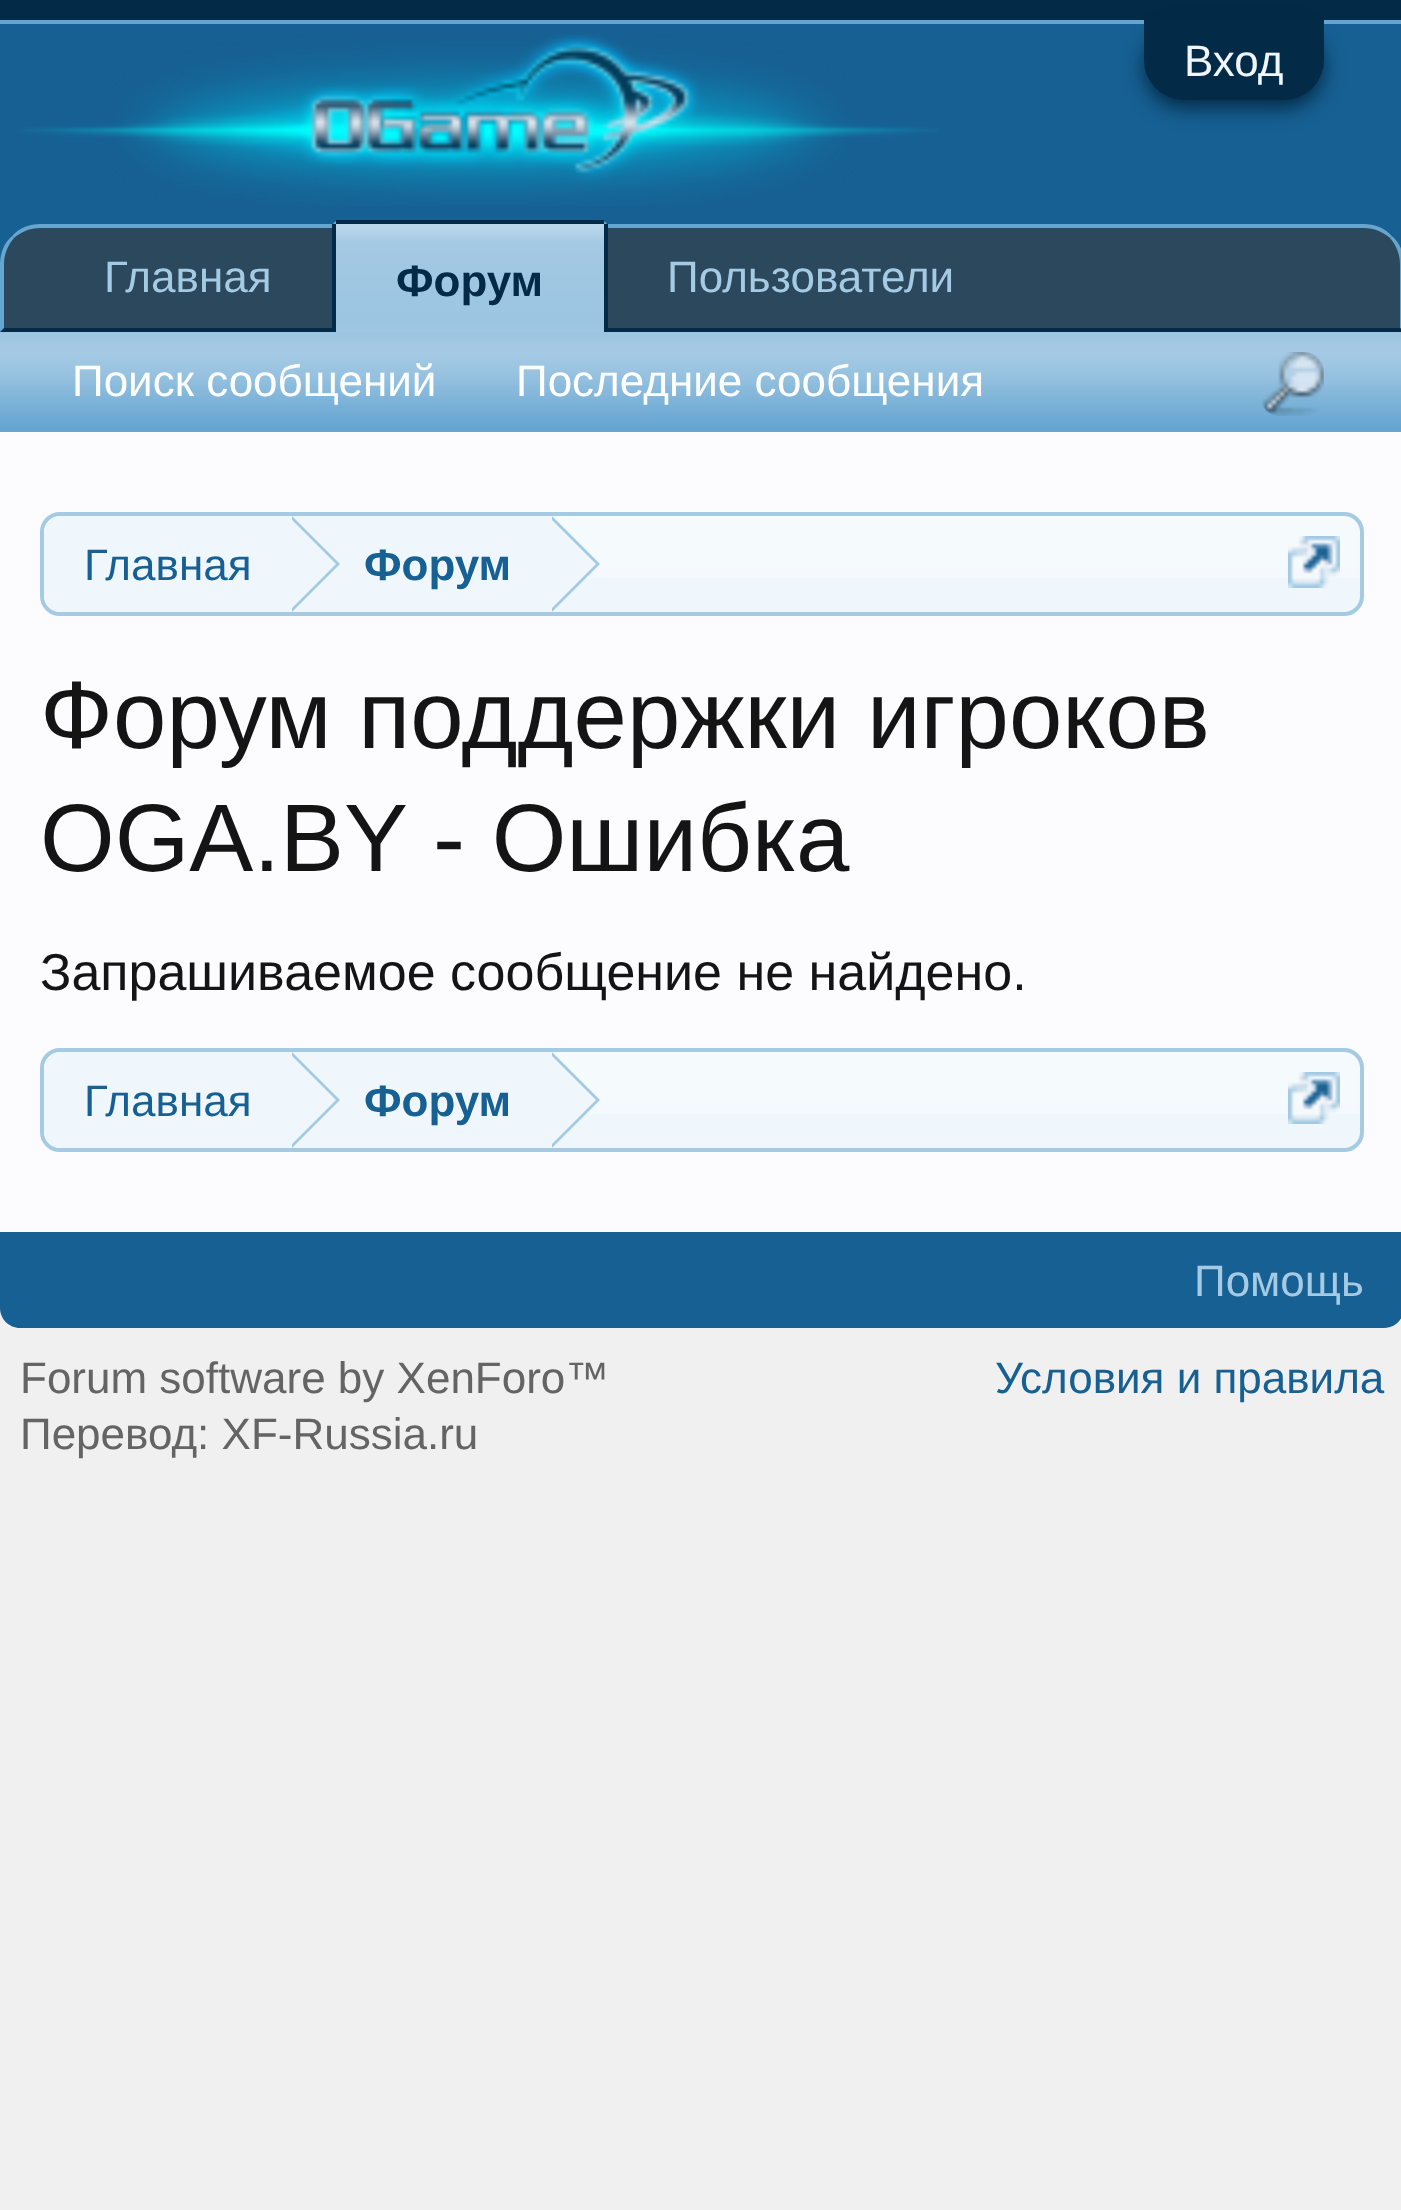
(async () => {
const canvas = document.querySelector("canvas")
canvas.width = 1401
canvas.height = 2210
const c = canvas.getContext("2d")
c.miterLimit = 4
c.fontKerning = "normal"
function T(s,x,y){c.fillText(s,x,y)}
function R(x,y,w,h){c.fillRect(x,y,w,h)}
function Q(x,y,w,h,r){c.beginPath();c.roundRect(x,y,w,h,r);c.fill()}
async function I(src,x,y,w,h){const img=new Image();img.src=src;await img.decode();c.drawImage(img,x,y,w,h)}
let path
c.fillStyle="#f0f0f0"
R(0,0,1401,2210)
c.fillStyle="#032a46"
R(0,0,1401,20)
c.fillStyle="#65a5d1"
R(0,20,1401,4)
c.fillStyle="#176093"
R(0,24,1401,240)
c.fillStyle="#032a46"
c.filter="blur(10px)"
c.beginPath()
c.roundRect(1144,28,180,80,40)
c.fill()
c.filter="none"
c.beginPath()
c.roundRect(1144,20,180,80,[0,0,40,40])
c.fill()
c.font="44px Liberation Sans"
c.fillStyle="#f0f7fc"
T("Вход",1184,76)
await I("1.png",17,34,922,172)
c.fillStyle="#2b485c"
path = new Path2D("M40 224h1324c22 0 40 18 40 40v68h-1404v-68c0-22 18-40 40-40z")
c.fill(path)
c.fillStyle="#65a5d1"
path = new Path2D("M40 224c-11 0-21 4-28 12l2 2c7-6 16-10 26-10h1324c10 0 19 4 26 10l2-2c-7-8-17-12-28-12z")
c.fill(path)
path = new Path2D("M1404 332v-68c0-11-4-21-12-28l-2 2c6 7 10 16 10 26v64z")
c.fill(path)
c.fillStyle="#032a46"
path = new Path2D("M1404 332l-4-4h-1396l-4 4z")
c.fill(path)
c.fillStyle="#65a5d1"
path = new Path2D("M0 332l4-4v-64c0-10 4-19 10-26l-2-2c-8 7-12 17-12 28z")
c.fill(path)
c.fillStyle="#a5cae4"
T("Главная",104,292)
T("Пользователи",667,292)
c.fillStyle="#65a5d1"
c.beginPath()
c.roundRect(332,220,276,112,[8,8,0,0])
c.fill()
await I("2.png",336,224,268,108)
c.fillStyle="#032a46"
R(336,220,268,4)
R(604,224,4,108)
R(332,224,4,108)
c.font="bold 44px Liberation Sans"
T("Форум",396,296)
c.fillStyle="#65a5d1"
R(0,332,1401,100)
await I("3.png",0,332,1401,95)
c.font="44px Liberation Sans"
c.fillStyle="#fff"
T("Поиск сообщений",72,396)
T("Последние сообщения",516,396)
await I("4.png",1262,352,62,64)
c.fillStyle="#fcfcff"
R(0,432,1401,800)
c.fillStyle="#f0f7fc"
Q(40,512,1324,104,20)
await I("5.png",40,516,1324,62)
c.beginPath()
c.roundRect(42,514,1320,100,18)
c.strokeStyle="#a5cae4"
c.lineWidth=4
c.stroke()
c.save()
c.beginPath()
c.roundRect(44,516,1316,96,16)
c.clip()
c.beginPath()
c.roundRect(44,516,248,100,[16,0,0,16])
c.fill()
c.restore()
c.fillStyle="#176093"
T("Главная",84,580)
c.fillStyle="#f0f7fc"
R(292,516,260,62)
c.fillStyle="#a5cae4"
path = new Path2D("M292 612v-96l48 48z")
c.fill(path)
c.fillStyle="#f0f7fc"
path = new Path2D("M288 612v-96l48 48z")
c.fill(path)
c.font="bold 44px Liberation Sans"
c.fillStyle="#176093"
T("Форум",364,580)
c.fillStyle="#a5cae4"
path = new Path2D("M552 612v-96l48 48z")
c.fill(path)
c.fillStyle="#f0f7fc"
path = new Path2D("M548 612v-96l48 48z")
c.fill(path)
await I("6.png",1288,536,52,52)
c.font="96px Liberation Sans"
c.fillStyle="#141414"
T("Форум поддержки игроков",40,748)
T("OGA.BY - Ошибка",40,871)
c.font="52px Liberation Sans"
T("Запрашиваемое сообщение не найдено.",40,990)
c.fillStyle="#f0f7fc"
Q(40,1048,1324,104,20)
await I("5.png",40,1052,1324,62)
c.beginPath()
c.roundRect(42,1050,1320,100,18)
c.stroke()
c.save()
c.beginPath()
c.roundRect(44,1052,1316,96,16)
c.clip()
c.beginPath()
c.roundRect(44,1052,248,100,[16,0,0,16])
c.fill()
c.restore()
c.font="44px Liberation Sans"
c.fillStyle="#176093"
T("Главная",84,1116)
c.fillStyle="#f0f7fc"
R(292,1052,260,62)
c.fillStyle="#a5cae4"
path = new Path2D("M292 1148v-96l48 48z")
c.fill(path)
c.fillStyle="#f0f7fc"
path = new Path2D("M288 1148v-96l48 48z")
c.fill(path)
c.font="bold 44px Liberation Sans"
c.fillStyle="#176093"
T("Форум",364,1116)
c.fillStyle="#a5cae4"
path = new Path2D("M552 1148v-96l48 48z")
c.fill(path)
c.fillStyle="#f0f7fc"
path = new Path2D("M548 1148v-96l48 48z")
c.fill(path)
await I("6.png",1288,1072,52,52)
c.fillStyle="#176093"
path = new Path2D("M0 1232h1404v76c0 11-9 20-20 20h-1364c-11 0-20-9-20-20z")
c.fill(path)
c.font="44px Liberation Sans"
c.fillStyle="#a5cae4"
T("Помощь",1194,1296)
c.fillStyle="#646464"
T("Forum software by XenForo™",20,1393)
T("Перевод: XF-Russia.ru",20,1449)
c.fillStyle="#176093"
T("Условия и правила",995,1393)
})()
